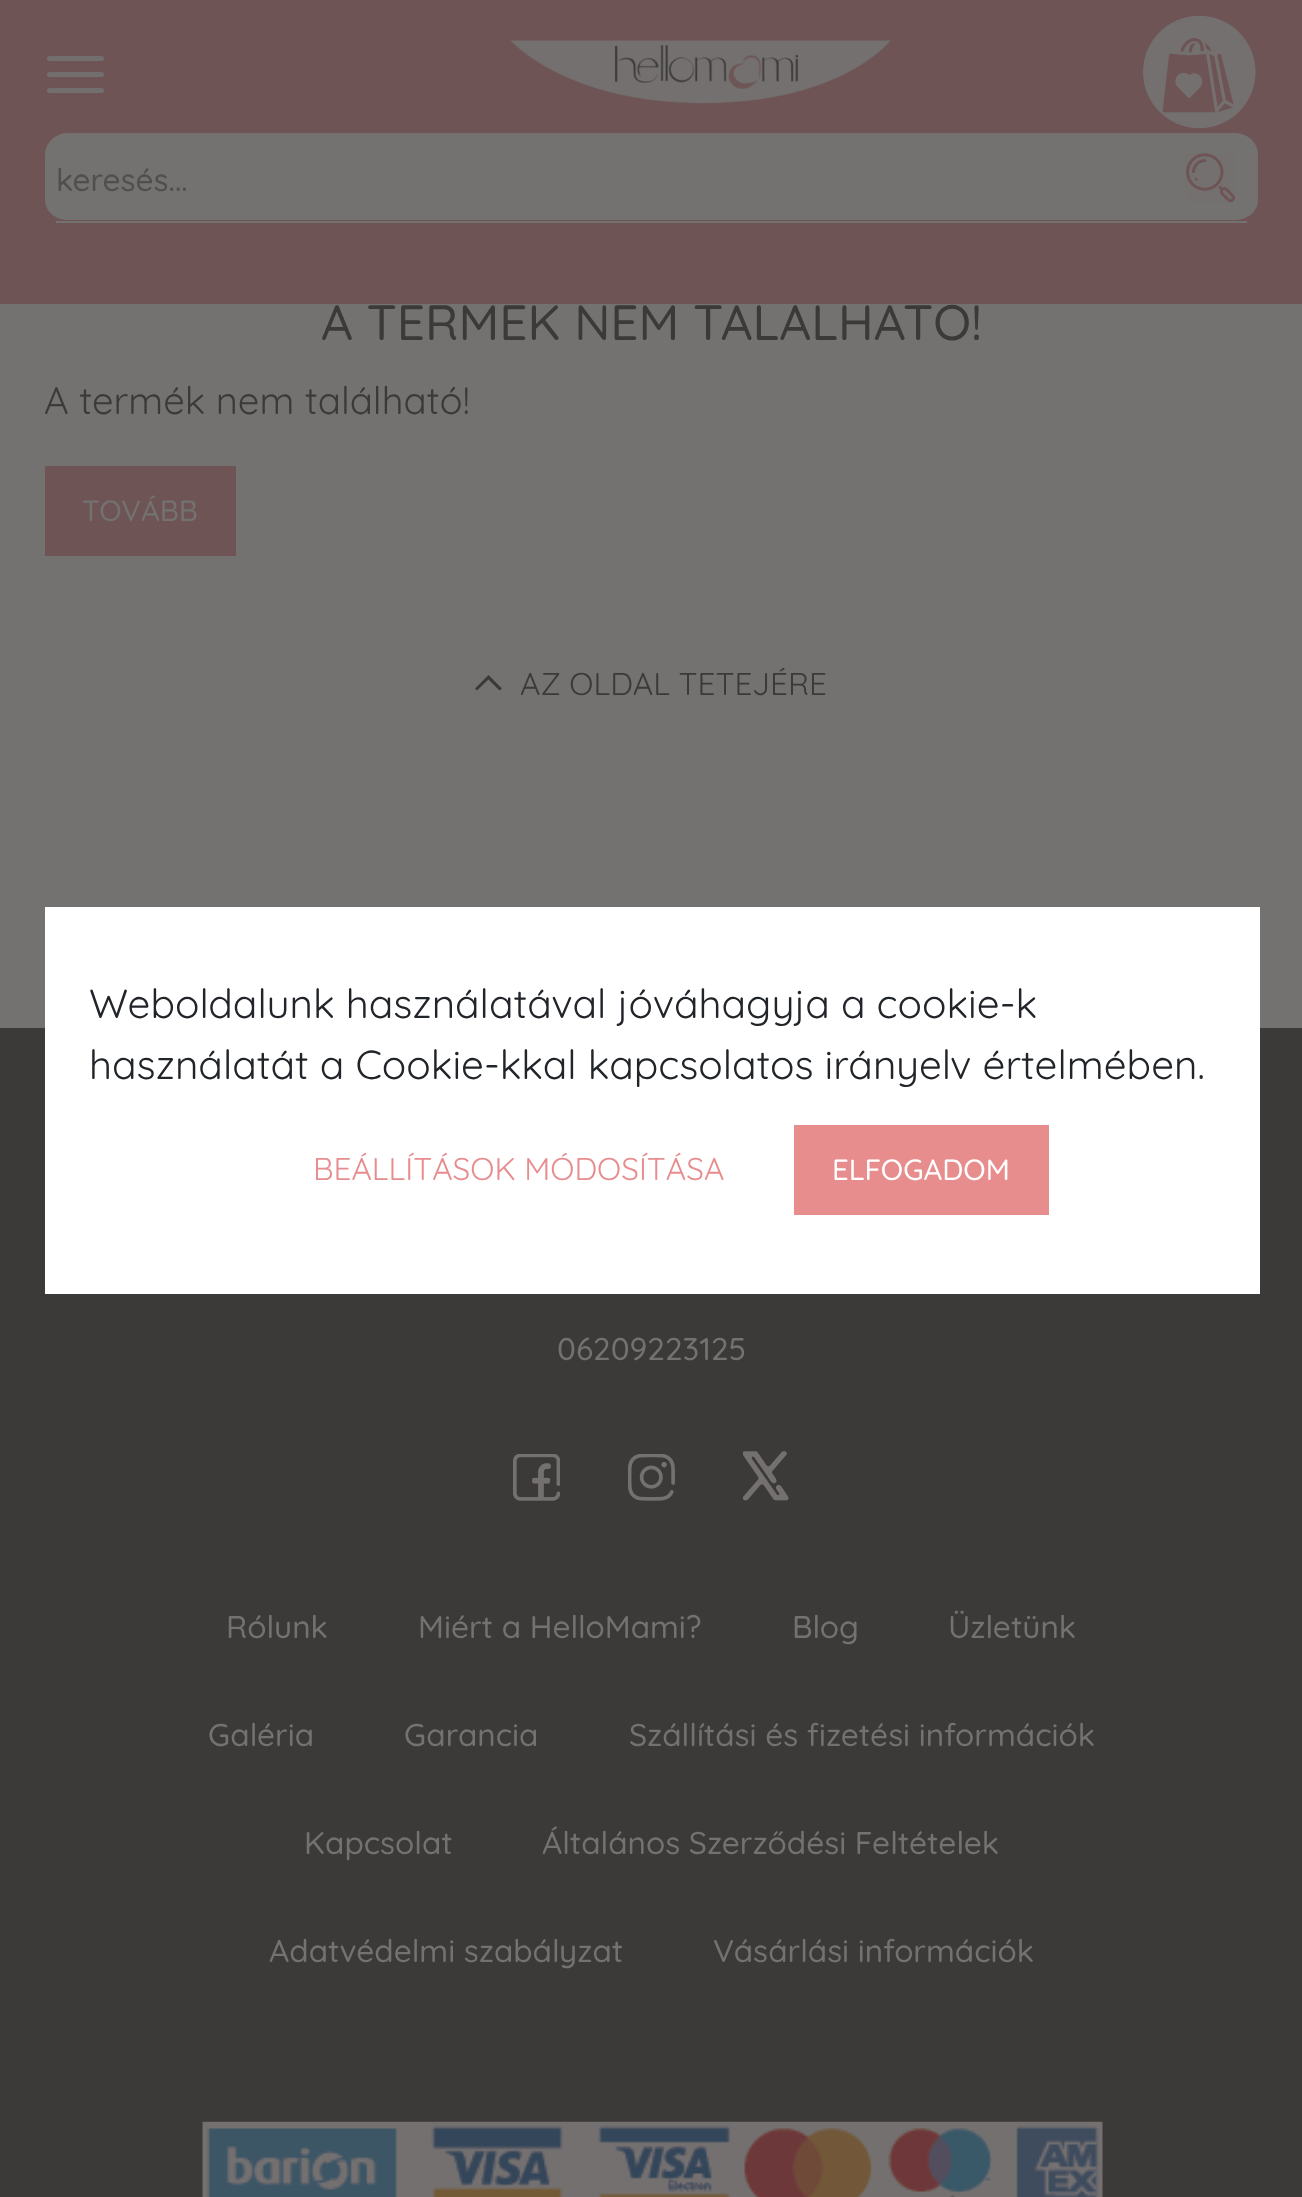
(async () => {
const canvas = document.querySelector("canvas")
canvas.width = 1302
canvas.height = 2197
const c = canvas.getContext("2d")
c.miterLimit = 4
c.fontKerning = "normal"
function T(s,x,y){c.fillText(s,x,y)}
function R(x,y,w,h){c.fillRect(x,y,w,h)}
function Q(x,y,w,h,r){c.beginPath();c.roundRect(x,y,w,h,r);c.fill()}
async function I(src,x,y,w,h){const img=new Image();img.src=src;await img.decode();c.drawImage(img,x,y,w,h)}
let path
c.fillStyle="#747171"
R(0,0,1302,2197)
c.font="500 49.5px Quicksand"
c.fillStyle="#3c3939"
T("A TERMÉK NEM TALÁLHATÓ!",321,340)
c.fillStyle="#6e5454"
R(0,0,1302,304)
c.fillStyle="#736e6e"
Q(47,56,57,5,2.5)
Q(47,72,57,5,2.5)
Q(47,88,57,5,2.5)
await I("1.png",510,40,381,64)
await I("2.png",1143,16,113,112)
c.fillStyle="#747171"
path = new Path2D("M68 133h1167c13 0 23 10 23 22v45c0 11-10 20-23 20h-1167c-13 0-23-9-23-20v-45c0-12 10-22 23-22z")
c.fill(path)
R(56,221,1191,2)
c.font="500 31.5px Quicksand"
c.fillStyle="#514e4e"
T("keresés...",56,191)
await I("3.png",1186,153,49,50)
c.font="38.25px Quicksand"
c.fillStyle="#3c3939"
T("A termék nem található!",44,414)
c.fillStyle="#6e5454"
R(45,466,191,90)
c.font="500 29.25px Quicksand"
c.fillStyle="#747171"
T("TOVÁBB",82,521)
c.fillStyle="#3c3939"
path = new Path2D("M475 688.5l2 2l11.5-11l11 11l2.5-2l-13.5-13.5z")
c.fill(path)
c.font="31.5px Quicksand"
T("AZ OLDAL TETEJÉRE",520,695)
R(0,1028,1302,1169)
c.font="500 31.5px Quicksand"
c.fillStyle="#747171"
T("06209223125",557,1360)
await I("4.png",513,1454,47,47)
await I("5.png",628,1454,47,47)
await I("6.png",743,1451,46,50)
T("Rólunk",226,1638)
T("Miért a HelloMami?",418,1638)
T("Blog",792,1638)
T("Üzletünk",948,1638)
T("Galéria",208,1746)
T("Garancia",404,1746)
T("Szállítási és fizetési információk",629,1746)
T("Kapcsolat",304,1854)
T("Általános Szerződési Feltételek",542,1854)
T("Adatvédelmi szabályzat",269,1962)
T("Vásárlási információk",713,1962)
await I("7.png",202,2121,901,76)
c.fillStyle="#fff"
R(45,907,1215,387)
c.font="40.5px Quicksand"
c.fillStyle="#212529"
T("Weboldalunk használatával jóváhagyja a cookie-k",89,1018)
T("használatát a Cookie-kkal kapcsolatos irányelv értelmében.",89,1079)
c.font="31.5px Quicksand"
c.fillStyle="#e88d8f"
T("BEÁLLÍTÁSOK MÓDOSÍTÁSA",313,1180)
c.fillStyle="#e88d8e"
R(794,1125,255,90)
c.font="500 29.25px Quicksand"
c.fillStyle="#fff"
T("ELFOGADOM",832,1180)
})()
